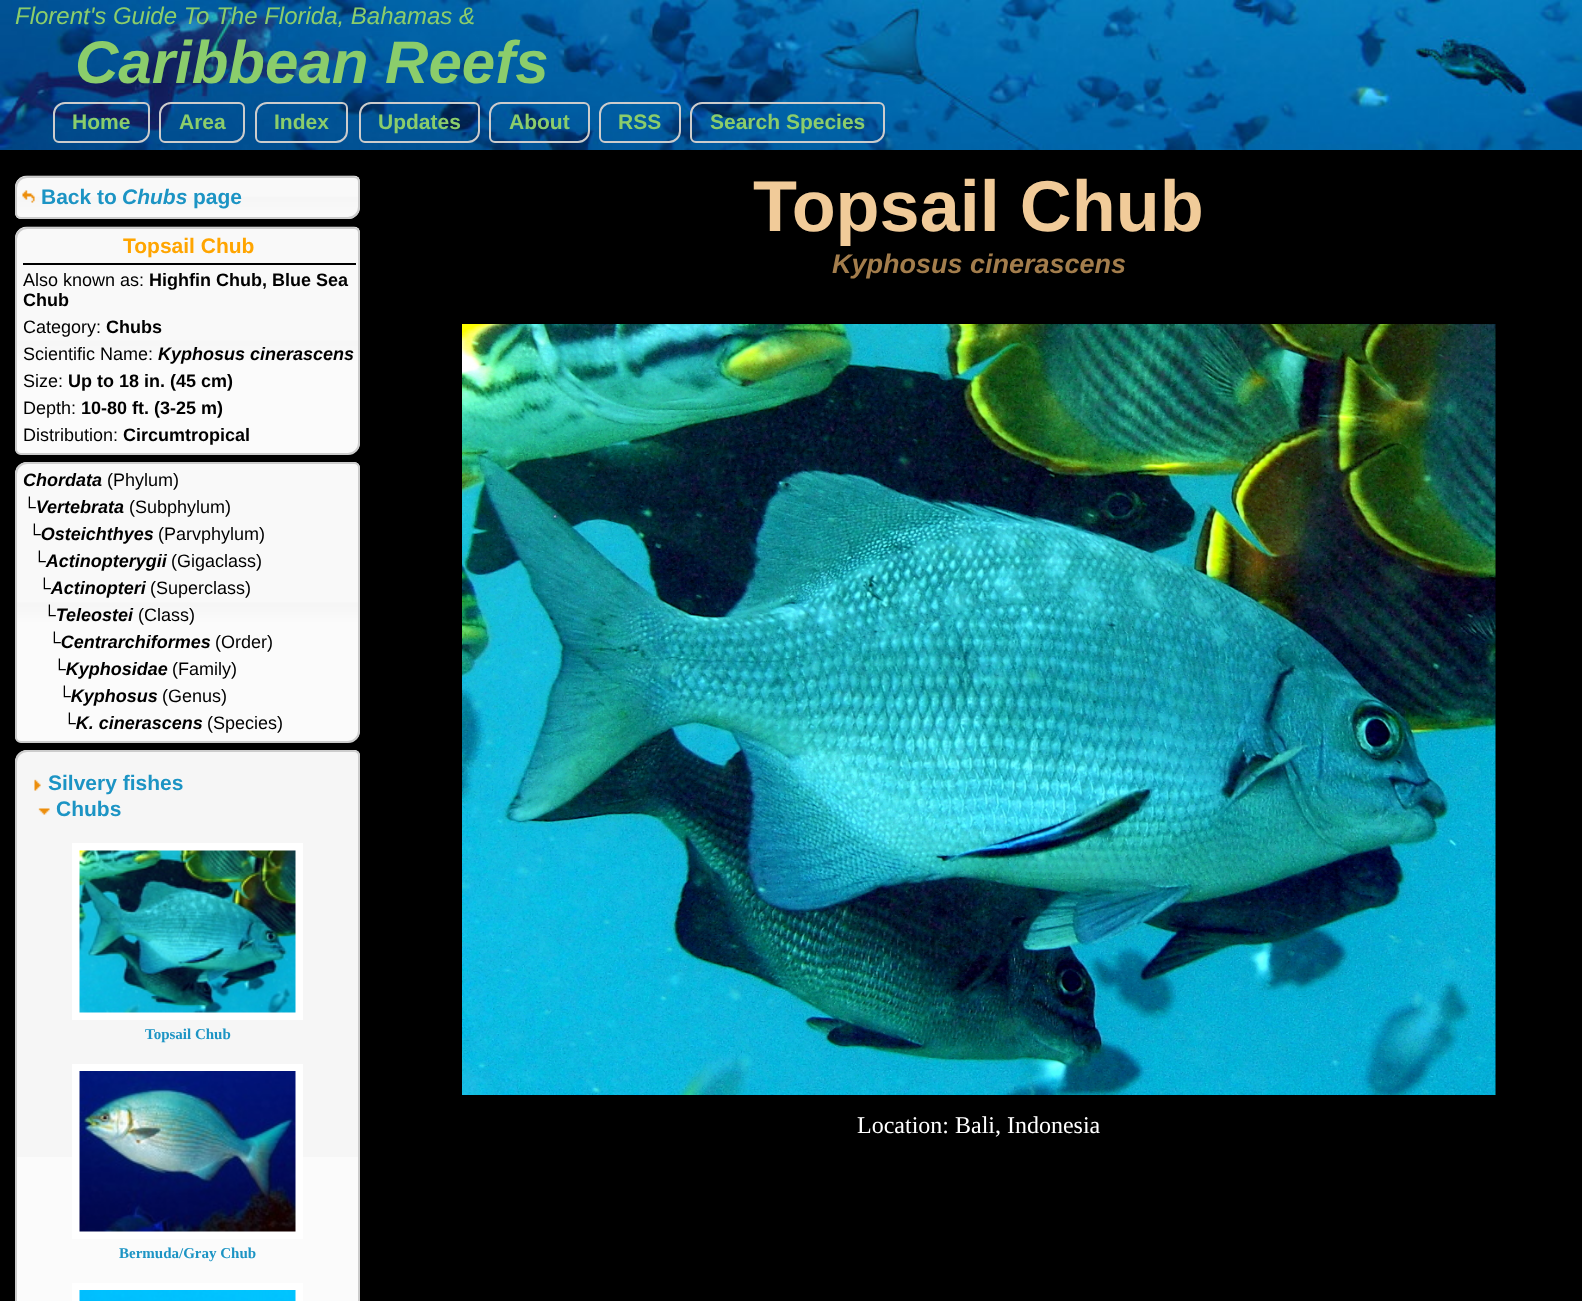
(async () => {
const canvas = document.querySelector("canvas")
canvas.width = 1582
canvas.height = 1301
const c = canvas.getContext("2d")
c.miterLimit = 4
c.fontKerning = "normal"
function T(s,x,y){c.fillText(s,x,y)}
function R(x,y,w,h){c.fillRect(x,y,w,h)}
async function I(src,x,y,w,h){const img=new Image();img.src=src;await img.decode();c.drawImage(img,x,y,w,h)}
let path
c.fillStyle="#000"
R(0,0,1582,1301)
await I("1.png",0,0,1582,150)
c.font="italic 24px Liberation Sans"
c.fillStyle="#8bcd6b"
T("Florent's Guide To The Florida, Bahamas &",15,24)
c.font="italic bold 60px Liberation Sans"
T("Caribbean Reefs",75,83)
c.beginPath()
c.roundRect(54,103,95,39,[11,5,11,5])
c.strokeStyle="#ccc"
c.lineWidth=2
c.stroke()
c.font="bold 21px Liberation Sans"
T("Home",72,129)
c.beginPath()
c.roundRect(160,103,84,39,[11,5,11,5])
c.stroke()
T("Area",179,129)
c.beginPath()
c.roundRect(256,103,91,39,[11,5,11,5])
c.stroke()
T("Index",274,129)
c.beginPath()
c.roundRect(360,103,119,39,[11,5,11,5])
c.stroke()
T("Updates",378,129)
c.beginPath()
c.roundRect(490,103,99,39,[11,5,11,5])
c.stroke()
T("About",509,129)
c.beginPath()
c.roundRect(600,103,80,39,[11,5,11,5])
c.stroke()
T("RSS",618,129)
c.beginPath()
c.roundRect(691,103,193,39,[11,5,11,5])
c.stroke()
T("Search Species",710,129)
await I("2.png",15,175,345,44)
c.beginPath()
c.roundRect(16,177,343,41,[11,5,11,5])
c.stroke()
await I("3.png",22,190,13,13)
c.fillStyle="#1c94c4"
T("Back to",41,204)
c.font="italic bold 21px Liberation Sans"
T("Chubs",122,204)
c.font="bold 21px Liberation Sans"
T("page",193,204)
await I("4.png",15,226,345,229)
c.beginPath()
c.roundRect(16,228,343,226,[11,5,11,5])
c.stroke()
c.fillStyle="#000"
R(23,263,333,2)
c.fillStyle="#ffa500"
T("Topsail Chub",123,253)
c.font="18px Liberation Sans"
c.fillStyle="#000"
T("Also known as:",23,286)
c.font="bold 18px Liberation Sans"
T("Highfin Chub, Blue Sea",149,286)
T("Chub",23,306)
c.font="18px Liberation Sans"
T("Category:",23,333)
c.font="bold 18px Liberation Sans"
T("Chubs",106,333)
c.font="18px Liberation Sans"
T("Scientific Name:",23,360)
c.font="italic bold 18px Liberation Sans"
T("Kyphosus cinerascens",158,360)
c.font="18px Liberation Sans"
T("Size:",23,387)
c.font="bold 18px Liberation Sans"
T("Up to 18 in. (45 cm)",68,387)
c.font="18px Liberation Sans"
T("Depth:",23,414)
c.font="bold 18px Liberation Sans"
T("10-80 ft. (3-25 m)",81,414)
c.font="18px Liberation Sans"
T("Distribution:",23,441)
c.font="bold 18px Liberation Sans"
T("Circumtropical",123,441)
await I("5.png",15,462,345,281)
c.beginPath()
c.roundRect(16,463,343,279,[11,5,11,5])
c.stroke()
c.font="italic bold 18px Liberation Sans"
T("Chordata",23,486)
c.font="18px Liberation Sans"
T("(Phylum)",107,486)
c.font="italic bold 18px Liberation Sans"
T("└Vertebrata",23,513)
c.font="18px Liberation Sans"
T("(Subphylum)",129,513)
c.font="italic bold 18px Liberation Sans"
T("└Osteichthyes",28,540)
c.font="18px Liberation Sans"
T("(Parvphylum)",158,540)
c.font="italic bold 18px Liberation Sans"
T("└Actinopterygii",33,567)
c.font="18px Liberation Sans"
T("(Gigaclass)",171,567)
c.font="italic bold 18px Liberation Sans"
T("└Actinopteri",38,594)
c.font="18px Liberation Sans"
T("(Superclass)",150,594)
c.font="italic bold 18px Liberation Sans"
T("└Teleostei",43,621)
c.font="18px Liberation Sans"
T("(Class)",138,621)
c.font="italic bold 18px Liberation Sans"
T("└Centrarchiformes",48,648)
c.font="18px Liberation Sans"
T("(Order)",215,648)
c.font="italic bold 18px Liberation Sans"
T("└Kyphosidae",53,675)
c.font="18px Liberation Sans"
T("(Family)",172,675)
c.font="italic bold 18px Liberation Sans"
T("└Kyphosus",58,702)
c.font="18px Liberation Sans"
T("(Genus)",162,702)
c.font="italic bold 18px Liberation Sans"
T("└K. cinerascens",63,729)
c.font="18px Liberation Sans"
T("(Species)",207,729)
c.fillStyle="#f6f6f6"
path = new Path2D("M27 750h327c3.5 0 6 2.5 6 6v545c0 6.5-5.5 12-12 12h-327c-3.5 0-6-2.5-6-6v-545c0-6.5 5.5-12 12-12z")
c.fill(path)
c.fillStyle="#fbfbfb"
R(17,1157,341,144)
path = new Path2D("M27 751h327c3 0 5 2 5 5v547c0 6-5 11-11 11h-327c-3 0-5-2-5-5v-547c0-6 5-11 11-11z")
c.stroke(path)
await I("6.png",34,779,7,12)
c.font="bold 21px Liberation Sans"
c.fillStyle="#1c94c4"
T("Silvery fishes",48,790)
await I("7.png",38,808,12,7)
T("Chubs",56,816)
c.strokeStyle="#fff"
c.lineWidth=8
c.strokeRect(76,847,223,169)
await I("8.png",79,850,217,163)
c.font="bold 15px Liberation Serif"
T("Topsail Chub",145,1039)
c.strokeRect(76,1068,223,167)
await I("9.png",79,1071,217,161)
T("Bermuda/Gray Chub",119,1258)
c.strokeRect(76,1287,223,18)
await I("10.png",79,1290,217,11)
c.font="bold 72px Liberation Sans"
c.fillStyle="#f1cb99"
T("Topsail Chub",753,231)
c.font="italic bold 27px Liberation Sans"
c.fillStyle="#a37d4c"
T("Kyphosus cinerascens",832,273)
await I("11.png",462,324,1034,771)
c.font="24px Liberation Serif"
c.fillStyle="#fff"
T("Location: Bali, Indonesia",857,1133)
})()
